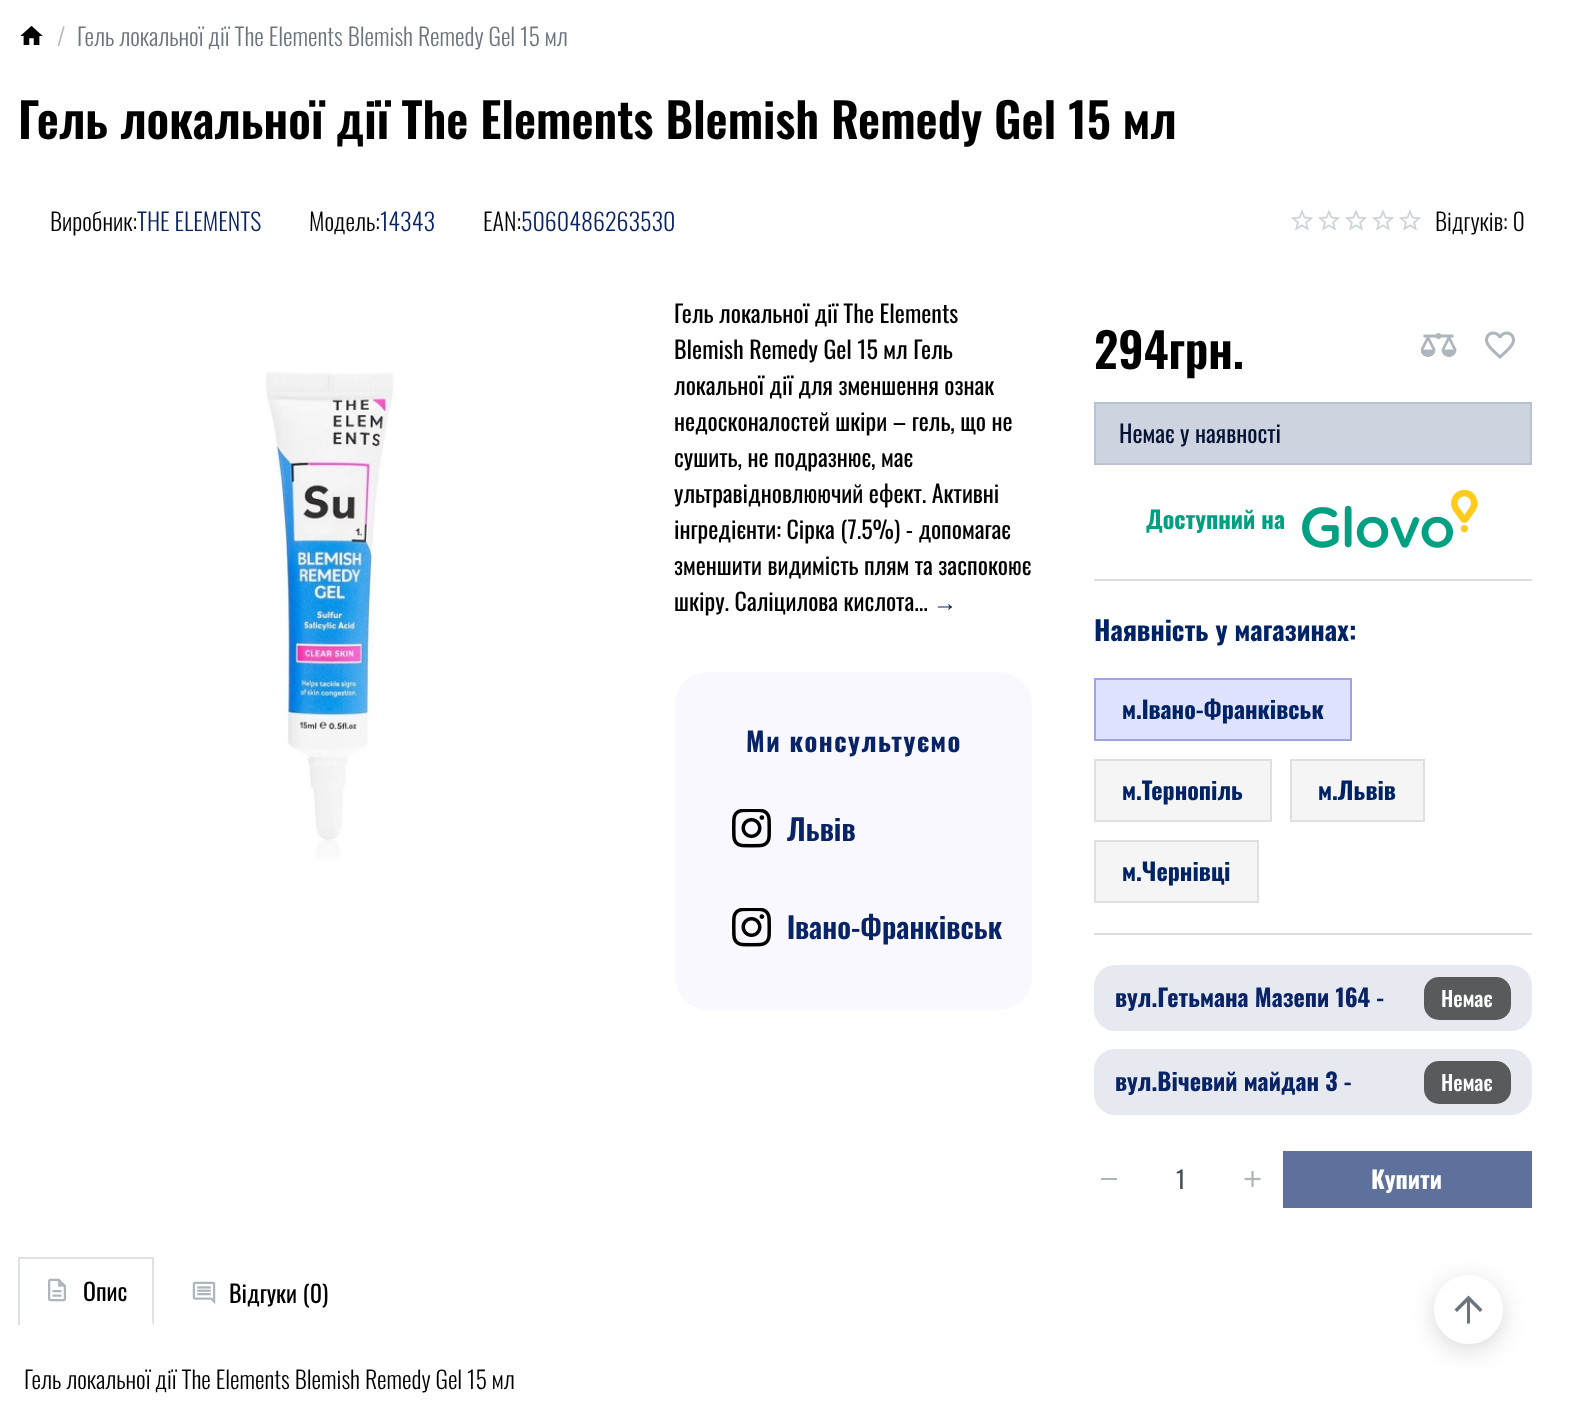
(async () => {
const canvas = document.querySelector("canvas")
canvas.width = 1574
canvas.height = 1416
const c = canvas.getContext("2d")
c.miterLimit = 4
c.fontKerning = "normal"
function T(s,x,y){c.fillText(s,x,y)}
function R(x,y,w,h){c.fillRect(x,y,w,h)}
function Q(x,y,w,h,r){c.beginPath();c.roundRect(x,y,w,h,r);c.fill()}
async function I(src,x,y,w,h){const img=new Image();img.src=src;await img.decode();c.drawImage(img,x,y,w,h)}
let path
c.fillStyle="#fff"
R(0,0,1574,1416)
await I("1.png",20,26,23,19)
c.font="300 24px Oswald"
c.fillStyle="#adb5bd"
T("/",57,46)
c.fillStyle="#6c757d"
T("Гель локальної дії The Elements Blemish Remedy Gel 15 мл",77,46)
c.font="600 48px Oswald"
c.fillStyle="#000"
T("Гель локальної дії The Elements Blemish Remedy Gel 15 мл",18,139)
c.font="300 24px Oswald"
T("Виробник:",50,231)
c.fillStyle="#082466"
T("THE ELEMENTS",137,231)
c.fillStyle="#000"
T("Модель:",309,231)
c.fillStyle="#082466"
T("14343",380,231)
c.fillStyle="#000"
T("EAN:",483,231)
c.fillStyle="#082466"
T("5060486263530",521,231)
await I("2.png",1291,209,22,22)
await I("2.png",1318,209,22,22)
await I("2.png",1345,209,22,22)
await I("2.png",1372,209,22,22)
await I("2.png",1399,209,22,22)
c.fillStyle="#000"
T("Відгуків: 0",1435,231)
await I("3.png",265,372,131,489)
c.font="24px Oswald"
T("Гель локальної дії The Elements",674,323)
T("Blemish Remedy Gel 15 мл Гель",674,359)
T("локальної дії для зменшення ознак",674,395)
T("недосконалостей шкіри – гель, що не",674,431)
T("сушить, не подразнює, має",674,467)
T("ультравідновлюючий ефект. Активні",674,503)
T("інгредієнти: Сірка (7.5%) - допомагає",674,539)
T("зменшити видимість плям та заспокоює",674,575)
T("шкіру. Саліцилова кислота...",674,611)
c.font="24px Liberation Sans"
c.fillStyle="#082466"
T("→",933,611)
c.fillStyle="#f9f8ff"
Q(675,672,357,338,33)
c.letterSpacing="1.5px"
c.font="bold 26.5px Oswald"
c.fillStyle="#082466"
T("Ми консультуємо",746,752)
await I("4.png",732,809,39,39)
c.letterSpacing="0px"
c.font="600 29.25px Oswald"
T("Львів",787,841)
await I("4.png",732,908,39,39)
T("Івано-Франківськ",787,939)
c.font="600 48px Oswald"
c.fillStyle="#000"
T("294грн.",1094,369)
await I("5.png",1421,333,36,24)
await I("6.png",1485,331,30,28)
c.fillStyle="#ced3e0"
c.beginPath()
c.rect(1095,403,436,61)
c.fill()
c.strokeStyle="#bac2d4"
c.lineWidth=2
c.stroke()
c.font="24px Oswald"
c.fillStyle="#041335"
T("Немає у наявності",1119,443)
c.font="bold 24px Oswald"
c.fillStyle="#00a082"
T("Доступний на",1146,529)
await I("7.png",1302,489,176,59)
c.fillStyle="#ddd"
R(1094,579,438,2)
c.font="bold 27px Oswald"
c.fillStyle="#002366"
T("Наявність у магазинах:",1094,641)
c.fillStyle="#e0e3ff"
c.beginPath()
c.rect(1095,679,256,61)
c.fill()
c.strokeStyle="#a2a2e5"
c.stroke()
c.font="bold 24px Oswald"
c.fillStyle="#002366"
T("м.Івано-Франківськ",1122,719)
c.fillStyle="#f5f5f5"
c.beginPath()
c.rect(1095,760,176,61)
c.fill()
c.strokeStyle="#e0e0e0"
c.stroke()
c.fillStyle="#002366"
T("м.Тернопіль",1122,800)
c.fillStyle="#f5f5f5"
c.beginPath()
c.rect(1291,760,133,61)
c.fill()
c.stroke()
c.fillStyle="#002366"
T("м.Львів",1318,800)
c.fillStyle="#f5f5f5"
c.beginPath()
c.rect(1095,841,163,61)
c.fill()
c.stroke()
c.fillStyle="#002366"
T("м.Чернівці",1122,881)
c.fillStyle="#ddd"
R(1094,933,438,2)
c.fillStyle="#e6e9f0"
Q(1094,965,438,66,21)
c.fillStyle="#082466"
T("вул.Гетьмана Мазепи 164 -",1115,1007)
c.fillStyle="#585a5c"
Q(1424,977,87,43,15)
c.font="500 21px Oswald"
c.fillStyle="#fff"
T("Немає",1441,1007)
c.fillStyle="#e6e9f0"
Q(1094,1049,438,66,21)
c.font="bold 24px Oswald"
c.fillStyle="#082466"
T("вул.Вічевий майдан 3 -",1115,1091)
c.fillStyle="#585a5c"
Q(1424,1061,87,43,15)
c.font="500 21px Oswald"
c.fillStyle="#fff"
T("Немає",1441,1091)
c.fillStyle="#adb5bd"
R(1101,1178,16,2)
c.font="24px Oswald"
c.fillStyle="#495057"
T("1",1176,1189)
await I("8.png",1244,1171,17,16)
c.fillStyle="#5e719c"
R(1283,1151,249,57)
c.font="bold 24px Oswald"
c.fillStyle="#fff"
T("Купити",1371,1189)
c.fillStyle="#dee2e6"
R(18,1257,135,2)
R(152,1257,2,68)
c.fillStyle="#fff"
R(152,1323,1,2)
c.fillStyle="#dee2e6"
R(18,1257,2,68)
await I("9.png",48,1278,18,24)
c.font="24px Oswald"
c.fillStyle="#000"
T("Опис",83,1301)
await I("10.png",192,1281,24,23)
T("Відгуки (0)",229,1303)
c.font="300 24px Oswald"
T("Гель локальної дії The Elements Blemish Remedy Gel 15 мл",24,1389)
c.fillStyle="#00000026"
c.filter="blur(12px)"
c.beginPath()
c.roundRect(1434,1281,69,69,34.5)
c.fill()
c.filter="none"
c.fillStyle="#fff"
c.beginPath()
c.arc(1468.5,1309.5,33.5,0,7)
c.fill()
c.strokeStyle="#fff"
c.stroke()
c.fillStyle="#6c757d"
path = new Path2D("M1454.5 1309.5l2.5 2.5l10-10v21.5h3v-21.5l10 10l2.5-2.5l-14-14z")
c.fill(path)
})()
